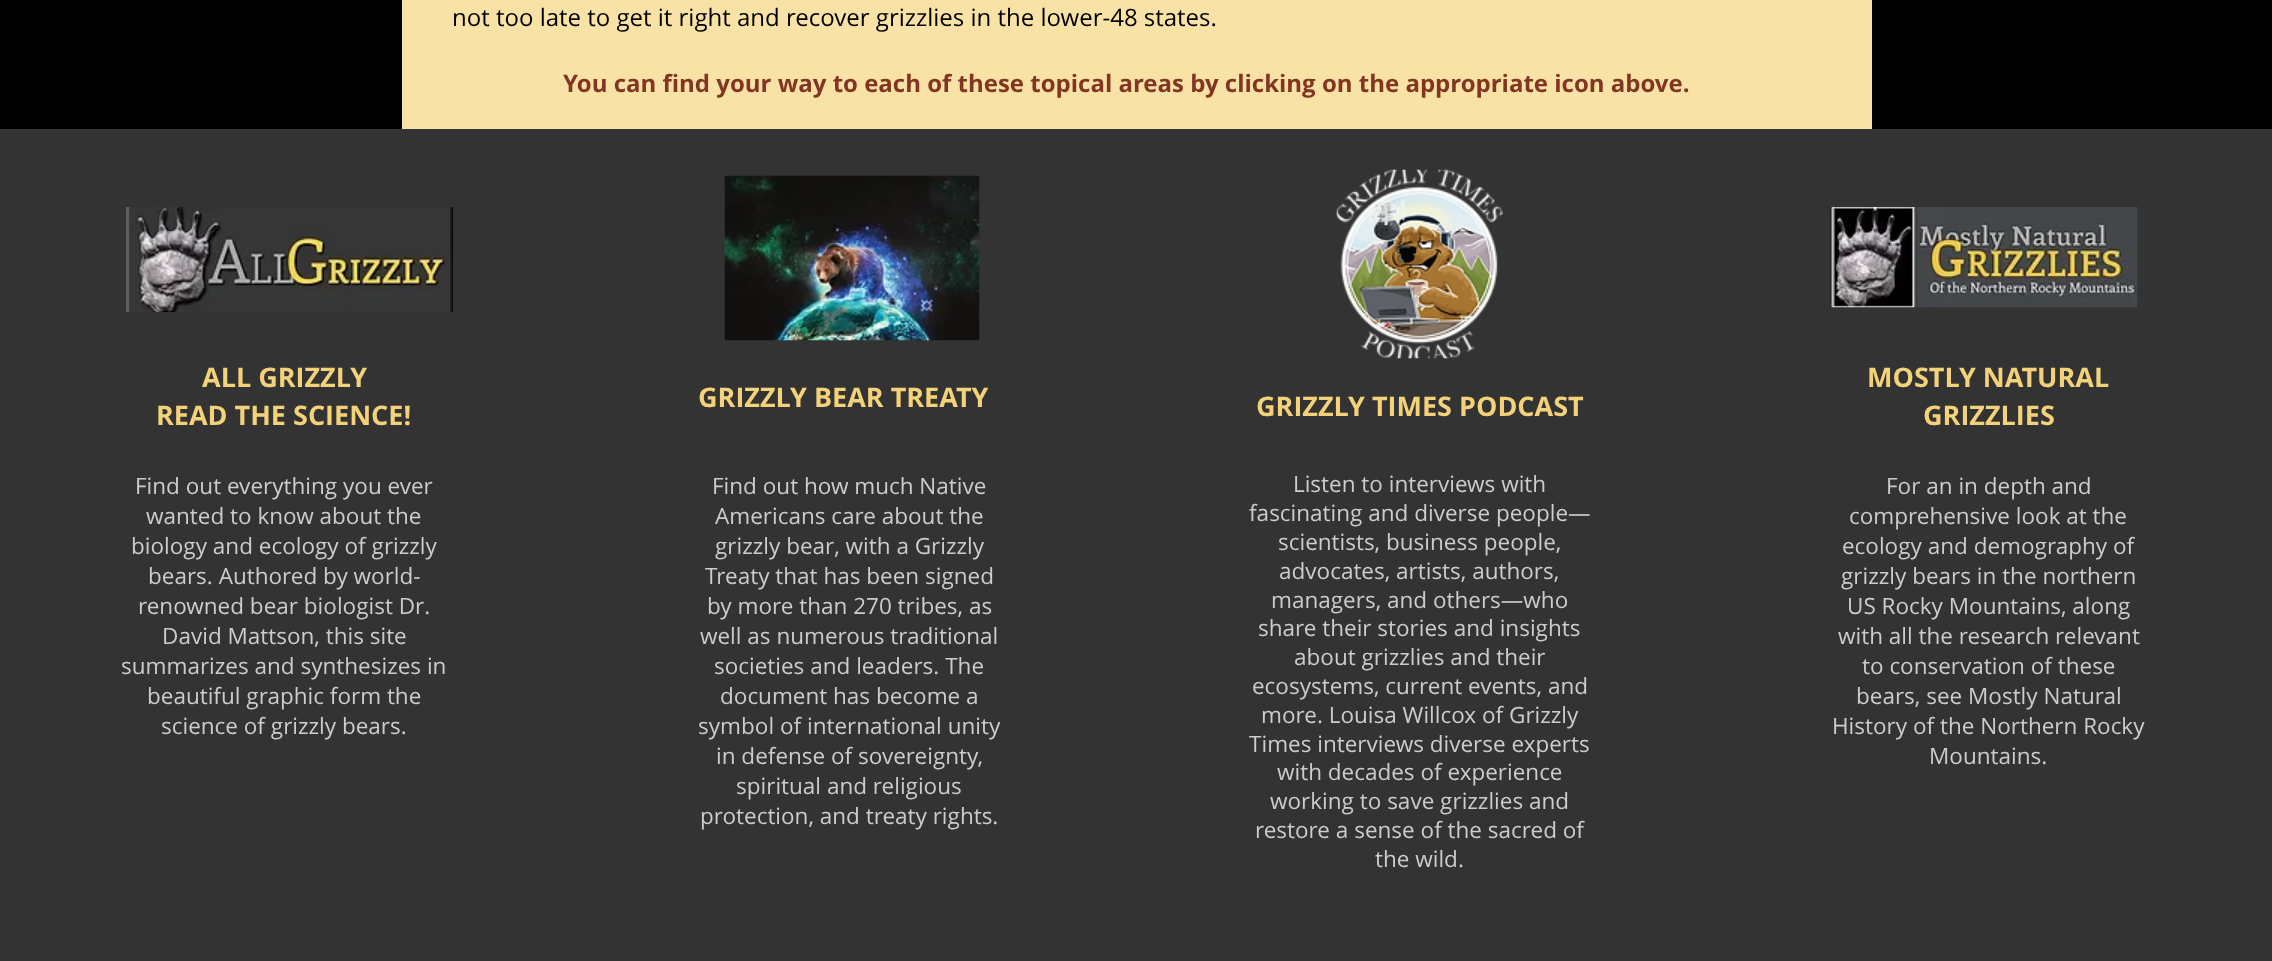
(async () => {
const canvas = document.querySelector("canvas")
canvas.width = 2272
canvas.height = 961
const c = canvas.getContext("2d")
c.miterLimit = 4
c.fontKerning = "normal"
function T(s,x,y){c.fillText(s,x,y)}
function R(x,y,w,h){c.fillRect(x,y,w,h)}
async function I(src,x,y,w,h){const img=new Image();img.src=src;await img.decode();c.drawImage(img,x,y,w,h)}
c.fillStyle="#000"
R(0,0,2272,961)
c.fillStyle="#f9e2a6"
R(402,0,1470,129)
c.font="24px Open Sans"
c.fillStyle="#000"
T("not too late to get it right and recover grizzlies in the lower-48 states.",452,26)
c.font="bold 24px Open Sans"
c.fillStyle="#823522"
T("You can find your way to each of these topical areas by clicking on the appropriate icon above.",563,92)
c.fillStyle="#333"
R(0,129,2272,832)
await I("1.png",126,207,327,105)
c.font="bold 27px Open Sans"
c.fillStyle="#f4d27a"
T("ALL GRIZZLY",202,387)
T("READ THE SCIENCE!",156,425)
c.font="22.5px Open Sans"
c.fillStyle="#ccc"
T("Find out everything you ever",135,494)
T("wanted to know about the",146,524)
T("biology and ecology of grizzly",131,554)
T("bears. Authored by world-",148,584)
T("renowned bear biologist Dr.",138,614)
T("David Mattson, this site",162,644)
T("summarizes and synthesizes in",121,674)
T("beautiful graphic form the",147,704)
T("science of grizzly bears.",161,734)
await I("2.png",724,175,256,166)
c.font="bold 27px Open Sans"
c.fillStyle="#f4d27a"
T("GRIZZLY BEAR TREATY",698,407)
c.font="22.5px Open Sans"
c.fillStyle="#ccc"
T("Find out how much Native",712,494)
T("Americans care about the",715,524)
T("grizzly bear, with a Grizzly",715,554)
T("Treaty that has been signed",705,584)
T("by more than 270 tribes, as",707,614)
T("well as numerous traditional",700,644)
T("societies and leaders. The",714,674)
T("document has become a",720,704)
T("symbol of international unity",698,734)
T("in defense of sovereignty,",716,764)
T("spiritual and religious",736,794)
T("protection, and treaty rights.",700,824)
await I("3.png",1336,169,167,190)
c.font="bold 27px Open Sans"
c.fillStyle="#f4d27a"
T("GRIZZLY TIMES PODCAST",1256,416)
c.font="22.5px Open Sans"
c.fillStyle="#ccc"
T("Listen to interviews with",1293,492)
T("fascinating and diverse people—",1249,521)
T("scientists, business people,",1278,550)
T("advocates, artists, authors,",1279,579)
T("managers, and others—who",1271,608)
T("share their stories and insights",1258,636)
T("about grizzlies and their",1294,665)
T("ecosystems, current events, and",1252,694)
T("more. Louisa Willcox of Grizzly",1261,723)
T("Times interviews diverse experts",1249,752)
T("with decades of experience",1277,780)
T("working to save grizzlies and",1270,809)
T("restore a sense of the sacred of",1255,838)
T("the wild.",1375,867)
await I("4.png",1830,207,308,101)
c.font="bold 27px Open Sans"
c.fillStyle="#f4d27a"
T("MOSTLY NATURAL",1867,387)
T("GRIZZLIES",1923,425)
c.font="22.5px Open Sans"
c.fillStyle="#ccc"
T("For an in depth and",1886,494)
T("comprehensive look at the",1849,524)
T("ecology and demography of",1842,554)
T("grizzly bears in the northern",1841,584)
T("US Rocky Mountains, along",1847,614)
T("with all the research relevant",1838,644)
T("to conservation of these",1862,674)
T("bears, see Mostly Natural",1856,704)
T("History of the Northern Rocky",1832,734)
T("Mountains.",1929,764)
})()
